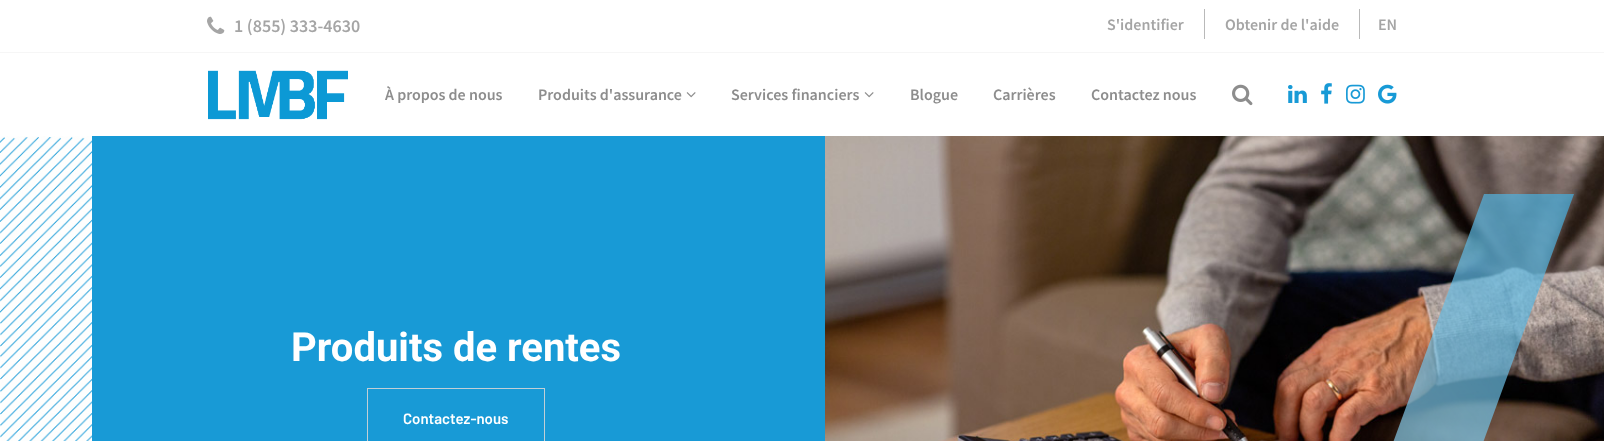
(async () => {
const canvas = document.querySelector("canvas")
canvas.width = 1604
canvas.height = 441
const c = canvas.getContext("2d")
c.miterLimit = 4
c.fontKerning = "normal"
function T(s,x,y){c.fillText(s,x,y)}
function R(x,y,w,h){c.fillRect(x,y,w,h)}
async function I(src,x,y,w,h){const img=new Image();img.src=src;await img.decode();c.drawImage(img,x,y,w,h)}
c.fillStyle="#fff"
R(0,0,1604,441)
c.fillStyle="#f6f6f6"
R(0,52,1604,1)
await I("1.png",207,16,18,18)
c.font="600 18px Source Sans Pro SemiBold"
c.fillStyle="#a5a5a5"
T("1 (855) 333-4630",234,32)
c.font="600 16px Source Sans Pro SemiBold"
T("S'identifier",1107,30)
c.fillStyle="#b9b9b9"
R(1204,9,1,30)
c.fillStyle="#a5a5a5"
T("Obtenir de l'aide",1225,30)
c.fillStyle="#b9b9b9"
R(1359,9,1,30)
c.fillStyle="#a5a5a5"
T("EN",1378,30)
await I("2.png",208,70,140,50)
c.fillStyle="#8d8d8d"
T("À propos de nous",385,100)
T("Produits d'assurance",538,100)
await I("3.png",686,92,10,6)
T("Services financiers",731,100)
await I("3.png",864,92,10,6)
T("Blogue",910,100)
T("Carrières",993,100)
T("Contactez nous",1091,100)
await I("4.png",1232,84,21,22)
await I("5.png",1288,85,19,18)
await I("6.png",1321,83,11,21)
await I("7.png",1346,84,19,20)
await I("8.png",1378,84,19,20)
c.fillStyle="#189ad6"
R(92,136,733,305)
await I("9.png",0,136,1604,305)
c.font="bold 40px Roboto"
c.fillStyle="#fff"
T("Produits de rentes",291,361)
c.strokeStyle="#c2cfd6"
c.strokeRect(367.5,388.5,177,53)
c.font="600 15px Barlow"
T("Contactez-nous",403,424)
})()
